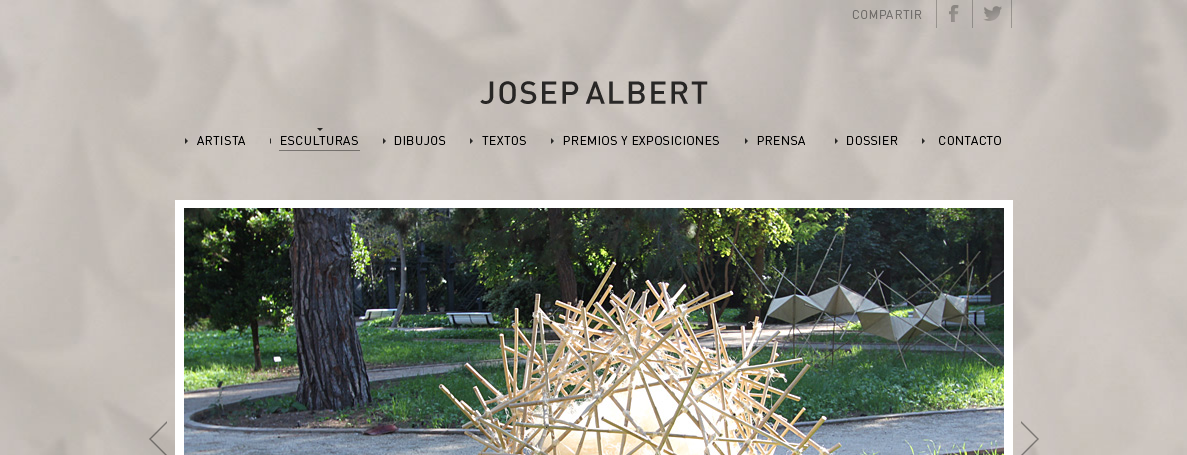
(async () => {
const canvas = document.querySelector("canvas")
canvas.width = 1187
canvas.height = 455
const c = canvas.getContext("2d")
c.miterLimit = 4
c.fontKerning = "normal"
function R(x,y,w,h){c.fillRect(x,y,w,h)}
async function I(src,x,y,w,h){const img=new Image();img.src=src;await img.decode();c.drawImage(img,x,y,w,h)}
c.fillStyle="#fff"
R(0,0,1187,455)
await I("1.png",0,0,1187,455)
await I("2.png",852,0,85,28)
await I("3.png",949,0,24,28)
await I("4.png",983,0,29,28)
await I("5.png",480,81,228,23)
await I("6.png",185,136,60,9)
await I("7.png",270,128,90,23)
await I("8.png",383,136,63,9)
await I("9.png",470,136,58,9)
await I("10.png",551,136,168,9)
await I("11.png",745,136,60,9)
await I("12.png",835,136,63,9)
await I("13.png",922,136,79,9)
await I("14.png",149,421,18,34)
R(175,200,838,255)
await I("15.png",184,208,820,247)
await I("16.png",1021,421,18,34)
})()
